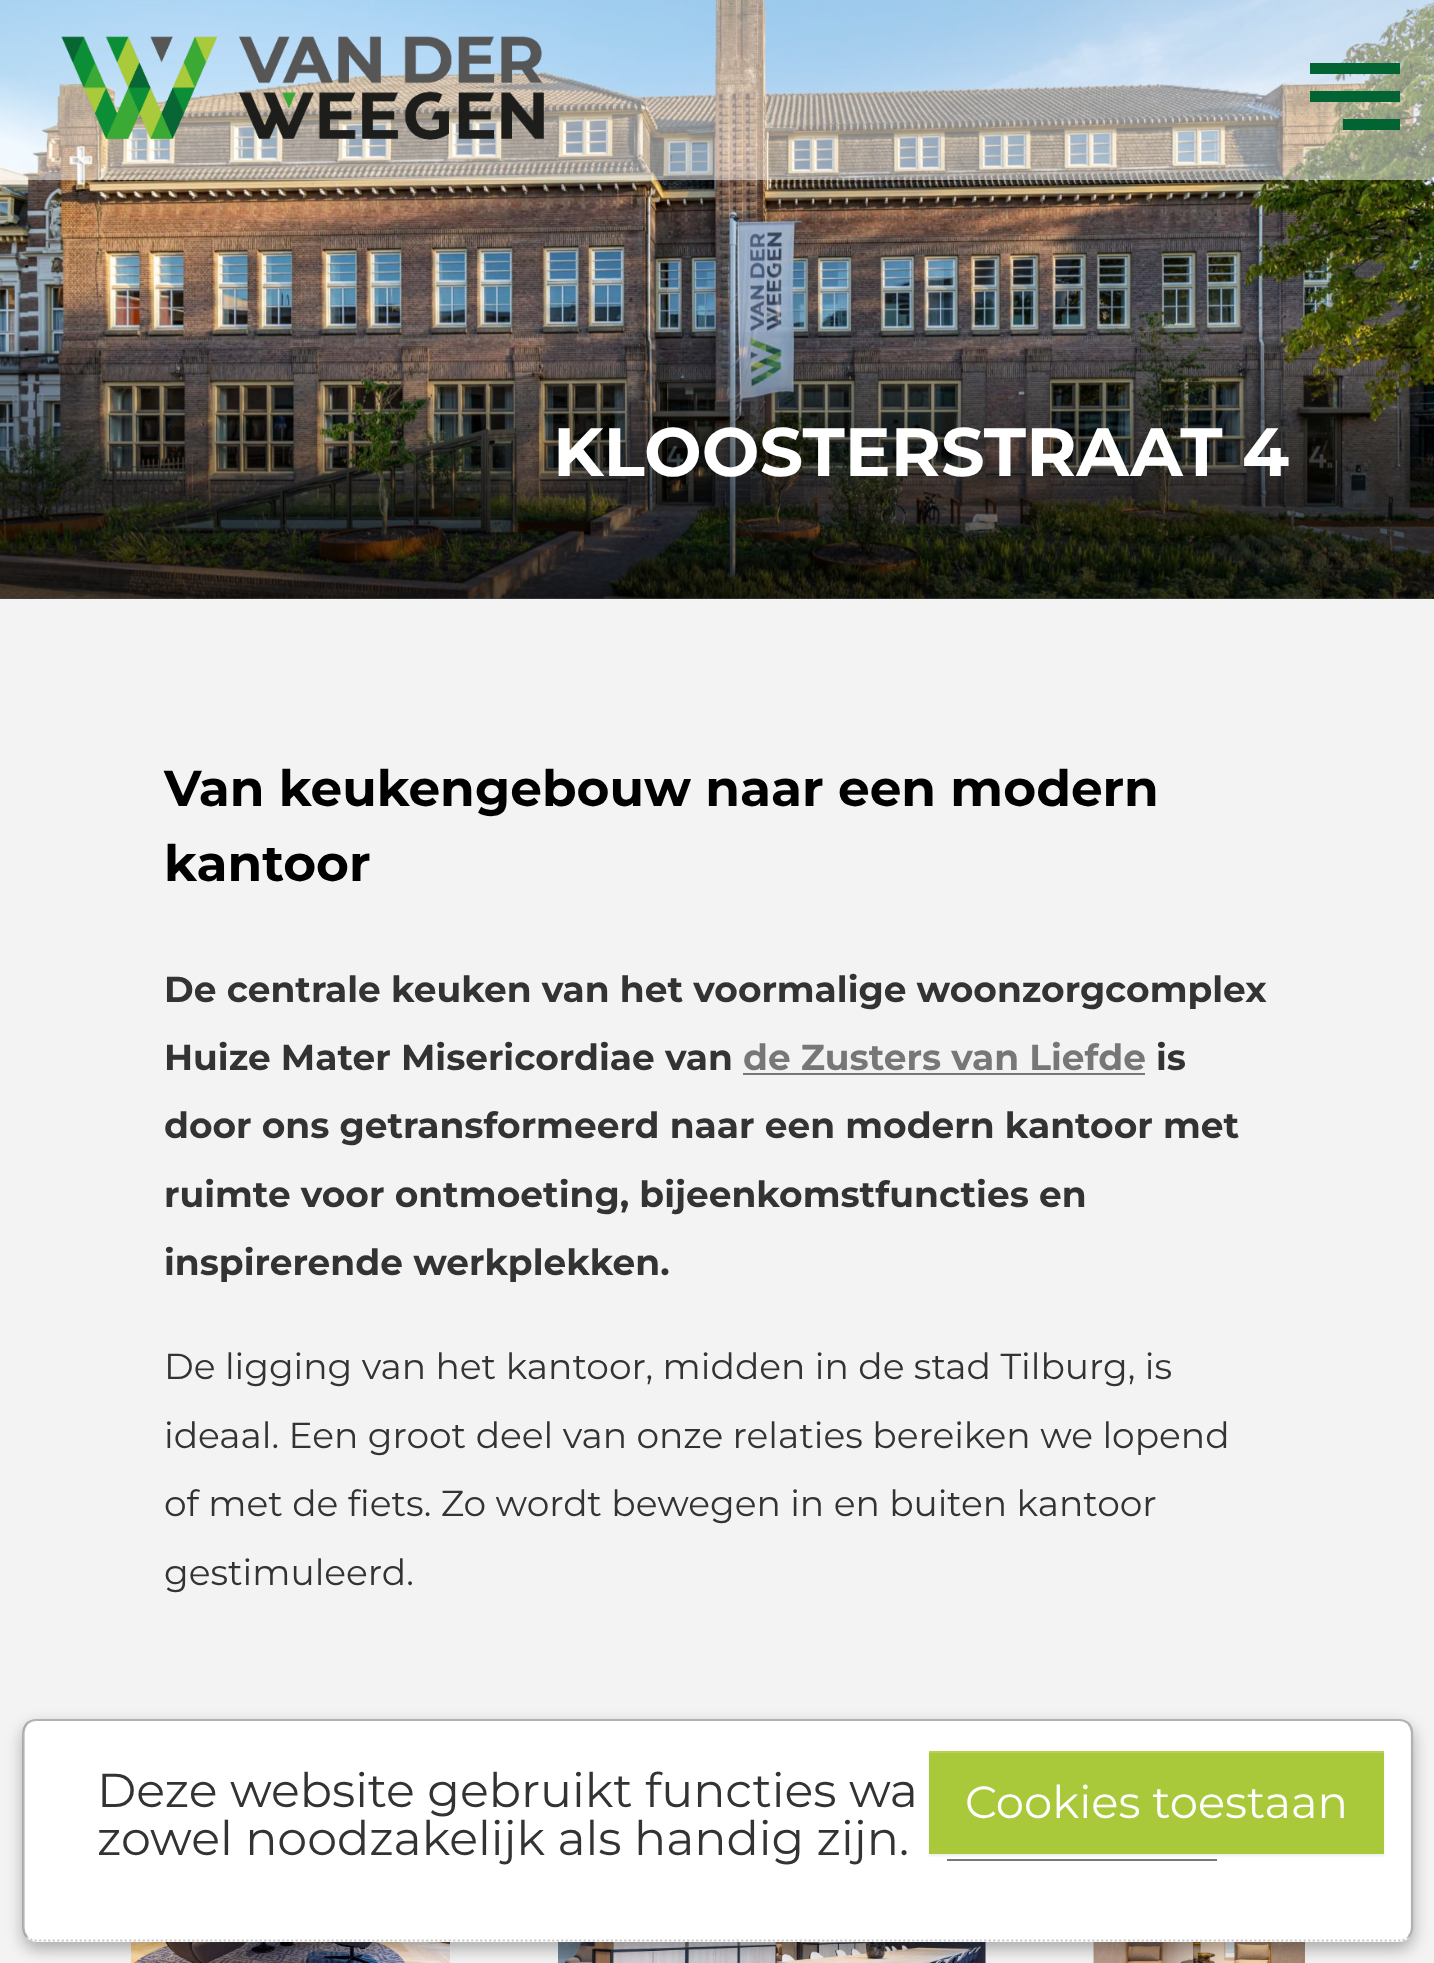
(async () => {
const canvas = document.querySelector("canvas")
canvas.width = 1434
canvas.height = 1963
const c = canvas.getContext("2d")
c.miterLimit = 4
c.fontKerning = "normal"
function T(s,x,y){c.fillText(s,x,y)}
function R(x,y,w,h){c.fillRect(x,y,w,h)}
function Q(x,y,w,h,r){c.beginPath();c.roundRect(x,y,w,h,r);c.fill()}
async function I(src,x,y,w,h){const img=new Image();img.src=src;await img.decode();c.drawImage(img,x,y,w,h)}
let gradient, path
c.fillStyle="#f3f3f3"
R(0,0,1434,1963)
await I("2.png",0,0,1434,599)
c.fillStyle="#ffffff80"
R(0,0,1434,180)
await I("1.png",61,36,483,104)
c.fillStyle="#006533"
R(1310,91,90,11)
R(1343,119,57,11)
path = new Path2D("M1343 74h-33v-11h90v11z")
c.fill(path)
gradient = c.createLinearGradient(718,599,718,324)
gradient.addColorStop(0,"#000000b3")
gradient.addColorStop(1,"#00000000")
c.fillStyle = gradient
R(0,332,1434,267)
c.font="bold 68.4px Montserrat"
c.fillStyle="#fff"
T("KLOOSTERSTRAAT 4",553,476)
c.font="bold 50.25px Montserrat"
c.fillStyle="#000"
T("Van keukengebouw naar een modern",164,806)
T("kantoor",164,881)
c.font="bold 36px Montserrat"
c.fillStyle="#333"
T("De centrale keuken van het voormalige woonzorgcomplex",164,1002)
T("Huize Mater Misericordiae van",164,1070)
c.fillStyle="#777"
T("de Zusters van Liefde",743,1070)
R(743,1073,402,2)
c.fillStyle="#333"
T("is",1156,1070)
T("door ons getransformeerd naar een modern kantoor met",164,1138)
T("ruimte voor ontmoeting, bijeenkomstfuncties en",164,1207)
T("inspirerende werkplekken.",164,1275)
c.font="36px Montserrat"
T("De ligging van het kantoor, midden in de stad Tilburg, is",164,1379)
T("ideaal. Een groot deel van onze relaties bereiken we lopend",164,1448)
T("of met de fiets. Zo wordt bewegen in en buiten kantoor",164,1516)
T("gestimuleerd.",164,1585)
await I("3.png",131,1942,319,21)
await I("4.png",558,1942,428,21)
await I("5.png",1093,1942,212,21)
c.fillStyle="#0000004d"
c.filter="blur(8px)"
c.beginPath()
c.roundRect(23,1726,1390,223,14)
c.fill()
c.filter="none"
c.fillStyle="#fff"
Q(23,1719,1390,223,14)
path = new Path2D("M1408.5 1937c-2.5 2.5-5.5 3.5-9 3.5h-1363.5c-3.5 0-6.5-1-9-3.5")
c.strokeStyle="#ccc"
c.lineWidth=2.2
c.setLineDash([2.25,2.25])
c.stroke(path)
path = new Path2D("M27 1937c-2-2.5-3.5-5.5-3.5-9v-195.5c0-3.5 1.5-6.5 3.5-9c2.5-2 5.5-3.5 9-3.5h1363.5c3.5 0 6.5 1.5 9 3.5c2 2.5 3.5 5.5 3.5 9v195.5c0 3.5-1.5 6.5-3.5 9")
c.strokeStyle="#0000004d"
c.setLineDash([])
c.stroke(path)
c.font="47.6px Montserrat"
c.fillStyle="#333"
T("Deze website gebruikt functies wa",97,1807)
T("zowel noodzakelijk als handig zijn.",97,1855)
c.fillStyle="#777"
R(947,1859,270,2)
c.fillStyle="#00000012"
c.filter="blur(1px)"
c.beginPath()
c.rect(929,1753,455,103)
c.fill()
c.filter="none"
c.fillStyle="#a9c93b"
R(929,1753,455,101)
c.fillStyle="#b6d158"
R(929,1751,455,2)
c.font="45px Montserrat"
c.fillStyle="#fff"
T("Cookies toestaan",965,1818)
})()
